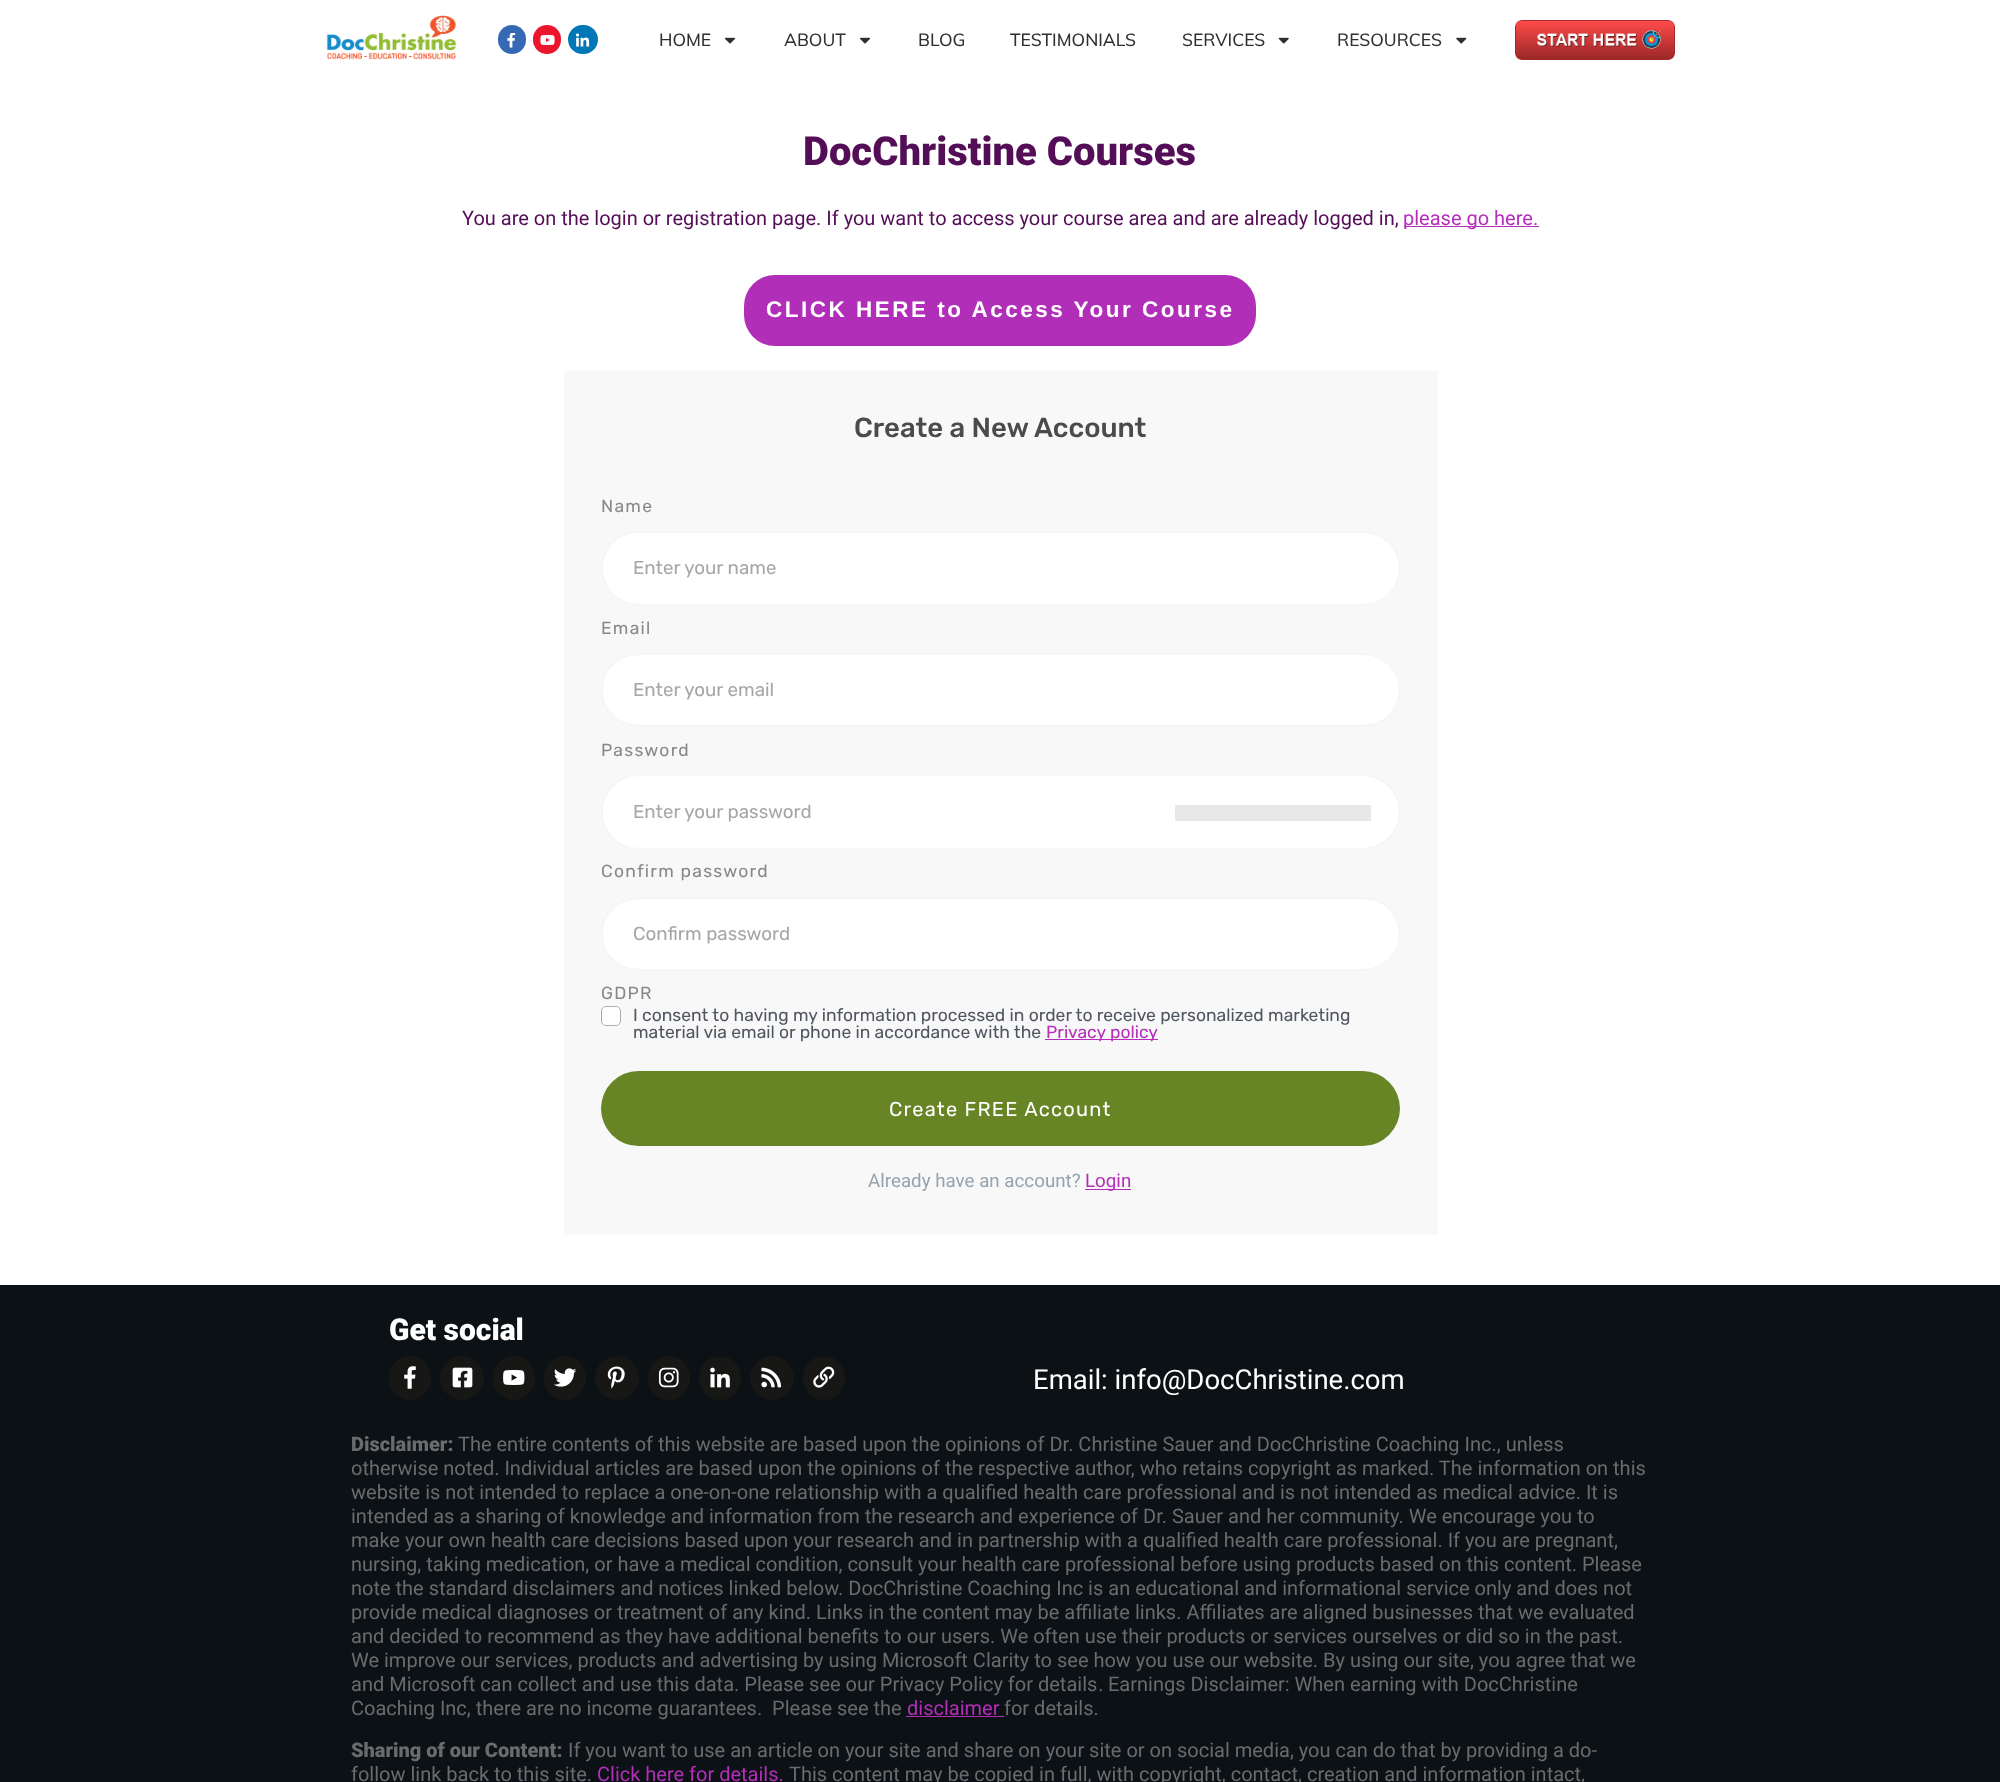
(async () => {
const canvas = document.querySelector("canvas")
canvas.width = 2000
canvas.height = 1782
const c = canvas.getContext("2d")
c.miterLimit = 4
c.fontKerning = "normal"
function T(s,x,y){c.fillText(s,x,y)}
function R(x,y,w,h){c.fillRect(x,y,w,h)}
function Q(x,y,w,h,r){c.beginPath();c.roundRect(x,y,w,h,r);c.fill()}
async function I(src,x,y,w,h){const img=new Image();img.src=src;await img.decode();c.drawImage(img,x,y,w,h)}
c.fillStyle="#fff"
R(0,0,2000,1782)
await I("1.png",326,15,131,45)
c.fillStyle="#3569b4"
Q(498,25,28,29,14)
await I("2.png",507,33,9,15)
c.fillStyle="#ec162c"
Q(533,25,28,29,14)
await I("3.png",540,35,15,10)
c.fillStyle="#0177b5"
Q(568,25,30,29,14.5)
await I("4.png",576,33,14,14)
c.font="500 17.5px Muli"
c.fillStyle="#2f2f2f"
T("HOME",659,46)
await I("5.png",724,37,11,7)
T("ABOUT",784,46)
await I("5.png",859,37,11,7)
T("BLOG",918,46)
T("TESTIMONIALS",1010,46)
T("SERVICES",1182,46)
await I("6.png",1278,37,11,7)
T("RESOURCES",1337,46)
await I("7.png",1456,37,11,7)
await I("8.png",1515,20,160,40)
c.font="900 40px Roboto"
c.fillStyle="#540d57"
T("DocChristine Courses",803,165)
c.font="20px Roboto"
T("You are on the login or registration page. If you want to access your course area and are already logged in,",462,225)
c.fillStyle="#b42eba"
R(1404,226,135,1)
T("please go here.",1403,225)
c.fillStyle="#b12eb8"
Q(744,275,512,71,31)
c.letterSpacing="2.5px"
c.font="bold 22.5px Liberation Sans"
c.fillStyle="#fff"
T("CLICK HERE to Access Your Course",766,317)
c.fillStyle="#f8f8f8"
R(564,371,874,864)
c.letterSpacing="0px"
c.font="500 27.5px Rubik"
c.fillStyle="#4b4b4b"
T("Create a New Account",854,437)
c.letterSpacing="1.25px"
c.font="17.5px Rubik"
c.fillStyle="#888"
T("Name",601,512)
c.fillStyle="#fff"
Q(603,533,796,71,35.5)
c.beginPath()
c.roundRect(601.5,531.5,798,73,36.5)
c.strokeStyle="#f5f5f5"
c.stroke()
c.letterSpacing="0px"
c.font="18.75px Rubik"
c.fillStyle="#a6a6a6"
T("Enter your name",633,574)
c.letterSpacing="1.25px"
c.font="17.5px Rubik"
c.fillStyle="#888"
T("Email",601,634)
c.fillStyle="#fff"
Q(603,655,796,70,35)
c.beginPath()
c.roundRect(601.5,654.5,798,71,35.5)
c.stroke()
c.letterSpacing="0px"
c.font="18.75px Rubik"
c.fillStyle="#a6a6a6"
T("Enter your email",633,696)
c.letterSpacing="1.25px"
c.font="17.5px Rubik"
c.fillStyle="#888"
T("Password",601,756)
c.fillStyle="#fff"
Q(603,776,796,72,36)
c.beginPath()
c.roundRect(601.5,775.5,798,73,36.5)
c.stroke()
c.letterSpacing="0px"
c.font="18.75px Rubik"
c.fillStyle="#a6a6a6"
T("Enter your password",633,818)
c.fillStyle="#e8e8e8"
R(1175,805,196,16)
c.letterSpacing="1.25px"
c.font="17.5px Rubik"
c.fillStyle="#888"
T("Confirm password",601,877)
c.fillStyle="#fff"
Q(603,899,796,70,35)
c.beginPath()
c.roundRect(601.5,898.5,798,71,35.5)
c.stroke()
c.letterSpacing="0px"
c.font="18.75px Rubik"
c.fillStyle="#a6a6a6"
T("Confirm password",633,940)
c.letterSpacing="1.25px"
c.font="17.5px Rubik"
c.fillStyle="#888"
T("GDPR",601,999)
c.fillStyle="#fff"
c.beginPath()
c.roundRect(601.5,1006.5,19,19,4.5)
c.fill()
c.strokeStyle="#afafaf"
c.stroke()
c.letterSpacing="0px"
c.fillStyle="#50565f"
T("I consent to having my information processed in order to receive personalized marketing",633,1021)
T("material via email or phone in accordance with the",633,1038)
c.fillStyle="#b42eba"
R(1045,1039,113,1)
T("Privacy policy",1046,1038)
c.fillStyle="#678525"
Q(601,1071,799,75,37.5)
c.letterSpacing="1.25px"
c.font="20px Rubik"
c.fillStyle="#fff"
T("Create FREE Account",889,1116)
c.letterSpacing="0px"
c.font="18.75px Roboto"
c.fillStyle="#94a3b0"
T("Already have an account?",868,1187)
c.fillStyle="#b12eb8"
R(1085,1189,46,1)
c.fillStyle="#b42eba"
T("Login",1085,1187)
c.fillStyle="#0c1115"
R(0,1285,2000,497)
c.font="900 30px Roboto"
c.fillStyle="#fff"
T("Get social",389,1340)
c.fillStyle="#171716"
Q(389,1356,42,44,21)
await I("9.png",404,1366,12,23)
c.beginPath()
c.arc(462,1378,22,0,7)
c.fill()
await I("10.png",452,1367,21,21)
Q(493,1356,42,44,21)
await I("11.png",503,1370,22,15)
Q(544,1356,42,44,21)
await I("12.png",554,1368,22,19)
c.beginPath()
c.arc(617,1378,22,0,7)
c.fill()
await I("13.png",607,1366,18,23)
Q(648,1356,42,44,21)
await I("14.png",658,1367,21,21)
Q(699,1356,42,44,21)
await I("15.png",710,1367,20,21)
c.beginPath()
c.arc(772,1378,22,0,7)
c.fill()
await I("16.png",761,1367,21,21)
Q(803,1356,42,44,21)
await I("17.png",813,1366,22,22)
c.font="27.5px Roboto"
c.fillStyle="#fff"
T("Email: info@DocChristine.com",1033,1389)
c.font="900 20px Roboto"
c.fillStyle="#6a6b6c"
T("Disclaimer:",351,1451)
c.font="20px Roboto"
T("The entire contents of this website are based upon the opinions of Dr. Christine Sauer and DocChristine Coaching Inc., unless",458,1451)
T("otherwise noted. Individual articles are based upon the opinions of the respective author, who retains copyright as marked. The information on this",351,1475)
T("website is not intended to replace a one-on-one relationship with a qualified health care professional and is not intended as medical advice. It is",351,1499)
T("intended as a sharing of knowledge and information from the research and experience of Dr. Sauer and her community. We encourage you to",351,1523)
T("make your own health care decisions based upon your research and in partnership with a qualified health care professional. If you are pregnant,",351,1547)
T("nursing, taking medication, or have a medical condition, consult your health care professional before using products based on this content. Please",351,1571)
T("note the standard disclaimers and notices linked below. DocChristine Coaching Inc is an educational and informational service only and does not",351,1595)
T("provide medical diagnoses or treatment of any kind. Links in the content may be affiliate links. Affiliates are aligned businesses that we evaluated",351,1619)
T("and decided to recommend as they have additional benefits to our users. We often use their products or services ourselves or did so in the past.",351,1643)
T("We improve our services, products and advertising by using Microsoft Clarity to see how you use our website. By using our site, you agree that we",351,1667)
T("and Microsoft can collect and use this data. Please see our Privacy Policy for details",351,1691)
c.font="italic 20px Roboto"
T(".",1098,1691)
c.font="20px Roboto"
T("Earnings Disclaimer: When earning with DocChristine",1108,1691)
T("Coaching Inc, there are no income guarantees.  Please see the",351,1715)
c.fillStyle="#b42eba"
T("disclaimer",907,1715)
R(906,1716,98,1)
c.fillStyle="#6a6b6c"
T("for details.",1004,1715)
c.font="900 20px Roboto"
T("Sharing of our Content:",351,1757)
c.font="20px Roboto"
T("If you want to use an article on your site and share on your site or on social media, you can do that by providing a do-",568,1757)
T("follow link back to this site.",351,1781)
c.fillStyle="#b42eba"
T("Click here for details.",597,1781)
c.fillStyle="#6a6b6c"
T("This content may be copied in full, with copyright, contact, creation and information intact,",789,1781)
})()
